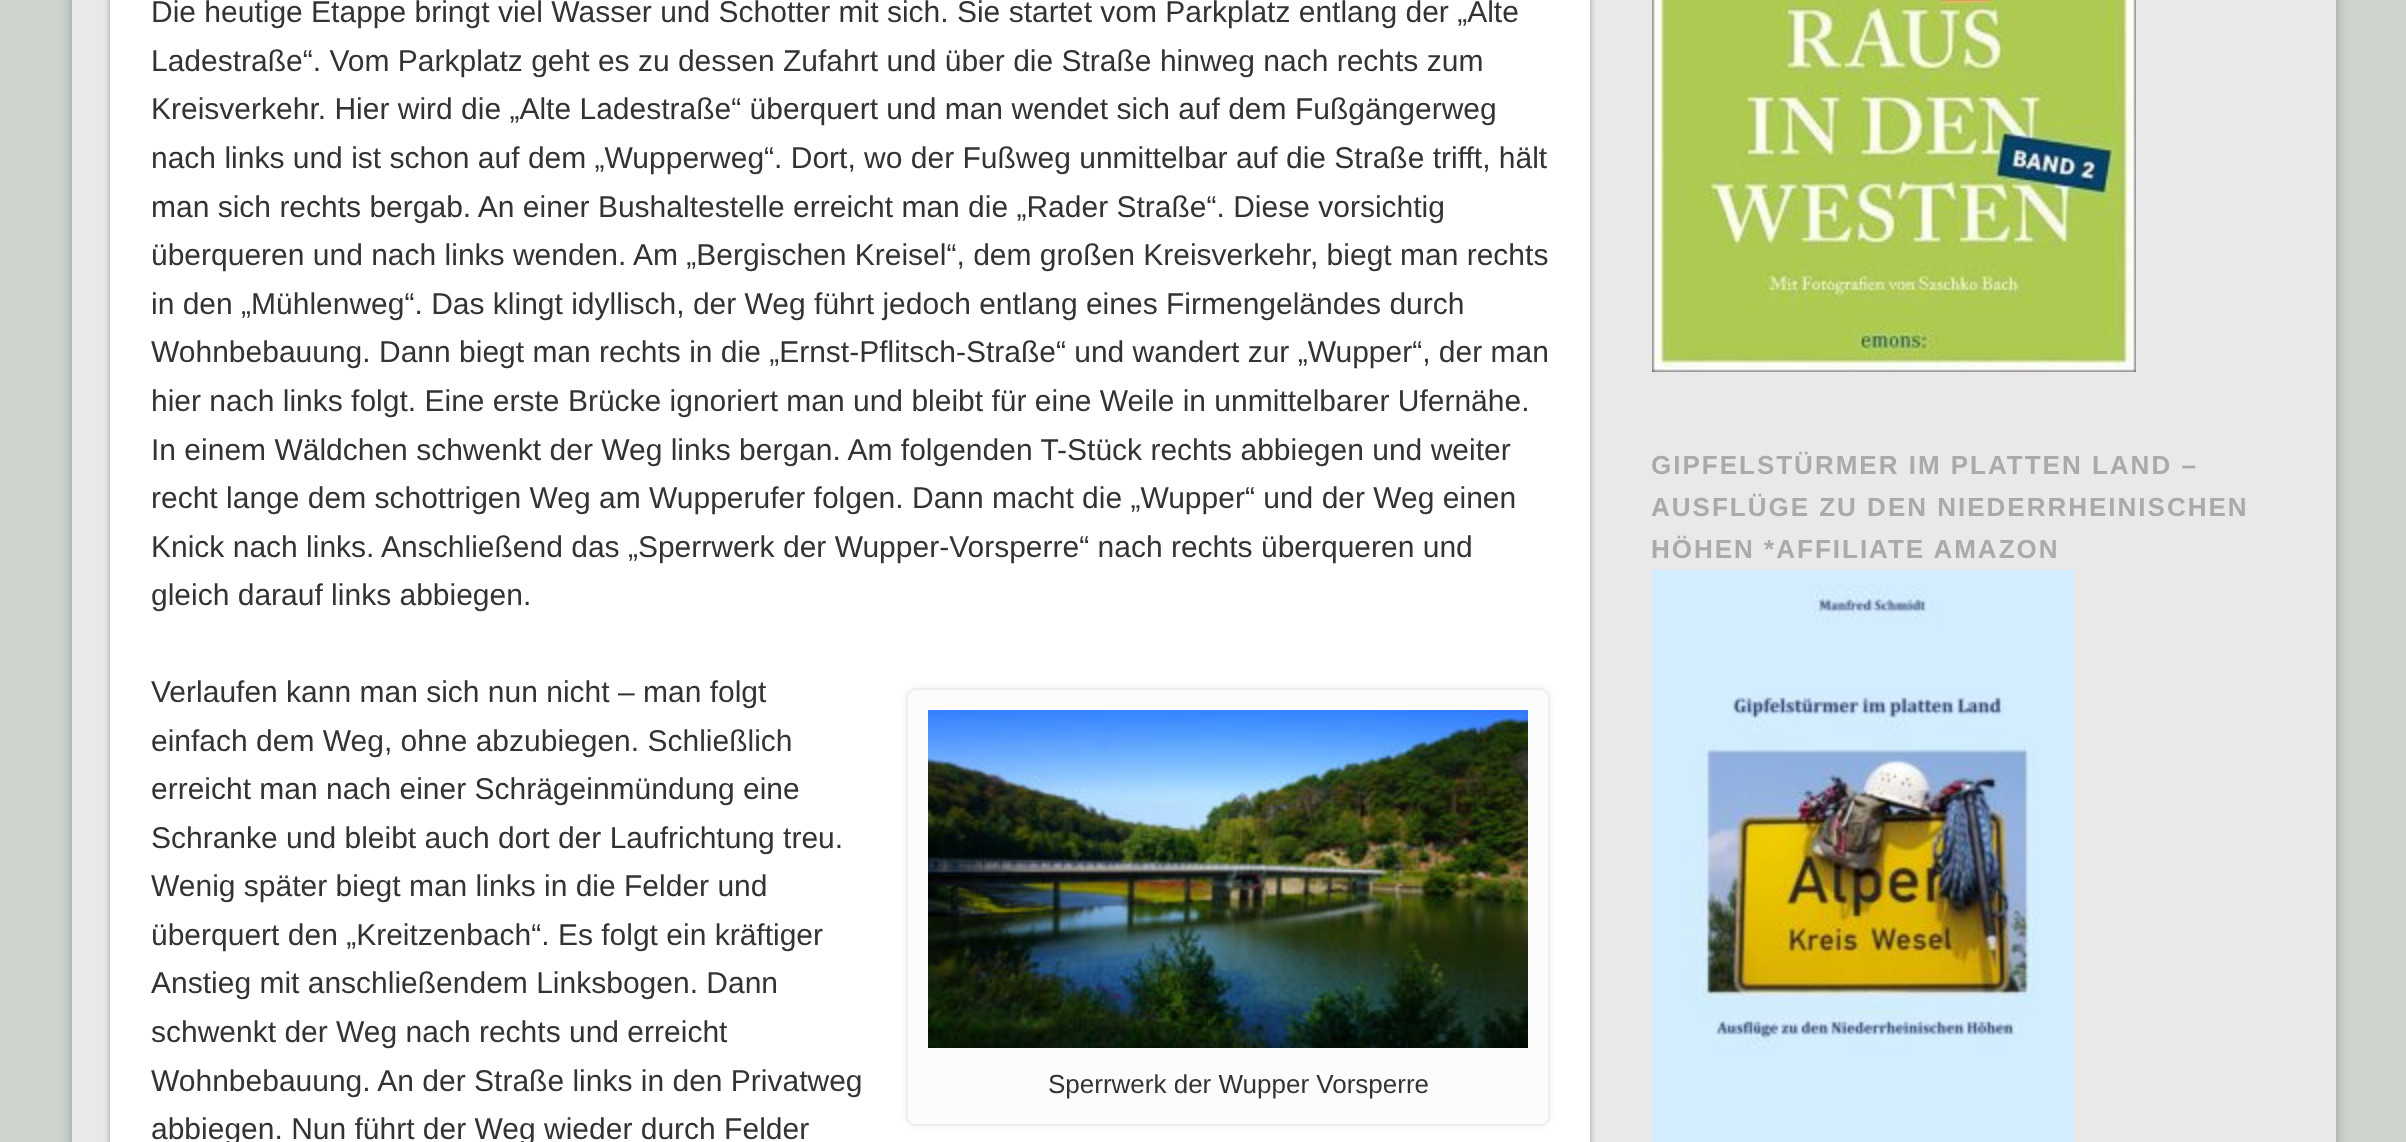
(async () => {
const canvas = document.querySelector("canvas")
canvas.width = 2406
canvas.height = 1142
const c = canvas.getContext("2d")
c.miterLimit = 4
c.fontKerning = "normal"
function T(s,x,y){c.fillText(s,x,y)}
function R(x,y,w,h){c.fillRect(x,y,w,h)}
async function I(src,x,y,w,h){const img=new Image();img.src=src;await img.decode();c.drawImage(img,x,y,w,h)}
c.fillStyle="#cdd4cd"
R(0,0,2406,1142)
c.fillStyle="#999"
c.filter="blur(6px)"
c.beginPath()
c.rect(72,-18,2264,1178)
c.fill()
c.filter="none"
c.fillStyle="#e9e9e9"
R(72,0,2264,1142)
c.fillStyle="#999"
c.filter="blur(3px)"
c.beginPath()
c.rect(110,-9,1480,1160)
c.fill()
c.filter="none"
c.fillStyle="#fff"
R(110,0,1480,1142)
c.font="30px Liberation Sans"
c.fillStyle="#333"
T("Die heutige Etappe bringt viel Wasser und Schotter mit sich. Sie startet vom Parkplatz entlang der „Alte",151,22)
T("Ladestraße“. Vom Parkplatz geht es zu dessen Zufahrt und über die Straße hinweg nach rechts zum",151,71)
T("Kreisverkehr. Hier wird die „Alte Ladestraße“ überquert und man wendet sich auf dem Fußgängerweg",151,119)
T("nach links und ist schon auf dem „Wupperweg“. Dort, wo der Fußweg unmittelbar auf die Straße trifft, hält",151,168)
T("man sich rechts bergab. An einer Bushaltestelle erreicht man die „Rader Straße“. Diese vorsichtig",151,217)
T("überqueren und nach links wenden. Am „Bergischen Kreisel“, dem großen Kreisverkehr, biegt man rechts",151,265)
T("in den „Mühlenweg“. Das klingt idyllisch, der Weg führt jedoch entlang eines Firmengeländes durch",151,314)
T("Wohnbebauung. Dann biegt man rechts in die „Ernst-Pflitsch-Straße“ und wandert zur „Wupper“, der man",151,362)
T("hier nach links folgt. Eine erste Brücke ignoriert man und bleibt für eine Weile in unmittelbarer Ufernähe.",151,411)
T("In einem Wäldchen schwenkt der Weg links bergan. Am folgenden T-Stück rechts abbiegen und weiter",151,460)
T("recht lange dem schottrigen Weg am Wupperufer folgen. Dann macht die „Wupper“ und der Weg einen",151,508)
T("Knick nach links. Anschließend das „Sperrwerk der Wupper-Vorsperre“ nach rechts überqueren und",151,557)
T("gleich darauf links abbiegen.",151,605)
T("Verlaufen kann man sich nun nicht – man folgt",151,702)
T("einfach dem Weg, ohne abzubiegen. Schließlich",151,751)
T("erreicht man nach einer Schrägeinmündung eine",151,799)
T("Schranke und bleibt auch dort der Laufrichtung treu.",151,848)
T("Wenig später biegt man links in die Felder und",151,896)
T("überquert den „Kreitzenbach“. Es folgt ein kräftiger",151,945)
T("Anstieg mit anschließendem Linksbogen. Dann",151,993)
T("schwenkt der Weg nach rechts und erreicht",151,1042)
T("Wohnbebauung. An der Straße links in den Privatweg",151,1091)
T("abbiegen. Nun führt der Weg wieder durch Felder",151,1139)
c.fillStyle="#eee"
c.filter="blur(3px)"
c.beginPath()
c.roundRect(906,688,644,438,10)
c.fill()
c.filter="none"
c.fillStyle="#fcfcfc"
c.beginPath()
c.roundRect(907,689,642,436,9)
c.fill()
c.strokeStyle="#eee"
c.lineWidth=2
c.stroke()
await I("1.png",928,710,600,338)
c.font="26px Liberation Sans"
c.fillStyle="#333"
T("Sperrwerk der Wupper Vorsperre",1048,1093)
await I("2.png",1652,0,484,372)
c.letterSpacing="2px"
c.font="bold 26px Liberation Sans"
c.fillStyle="#aaa"
T("GIPFELSTÜRMER IM PLATTEN LAND –",1651,474)
T("AUSFLÜGE ZU DEN NIEDERRHEINISCHEN",1651,516)
T("HÖHEN *AFFILIATE AMAZON",1651,558)
await I("3.png",1652,570,422,572)
})()
